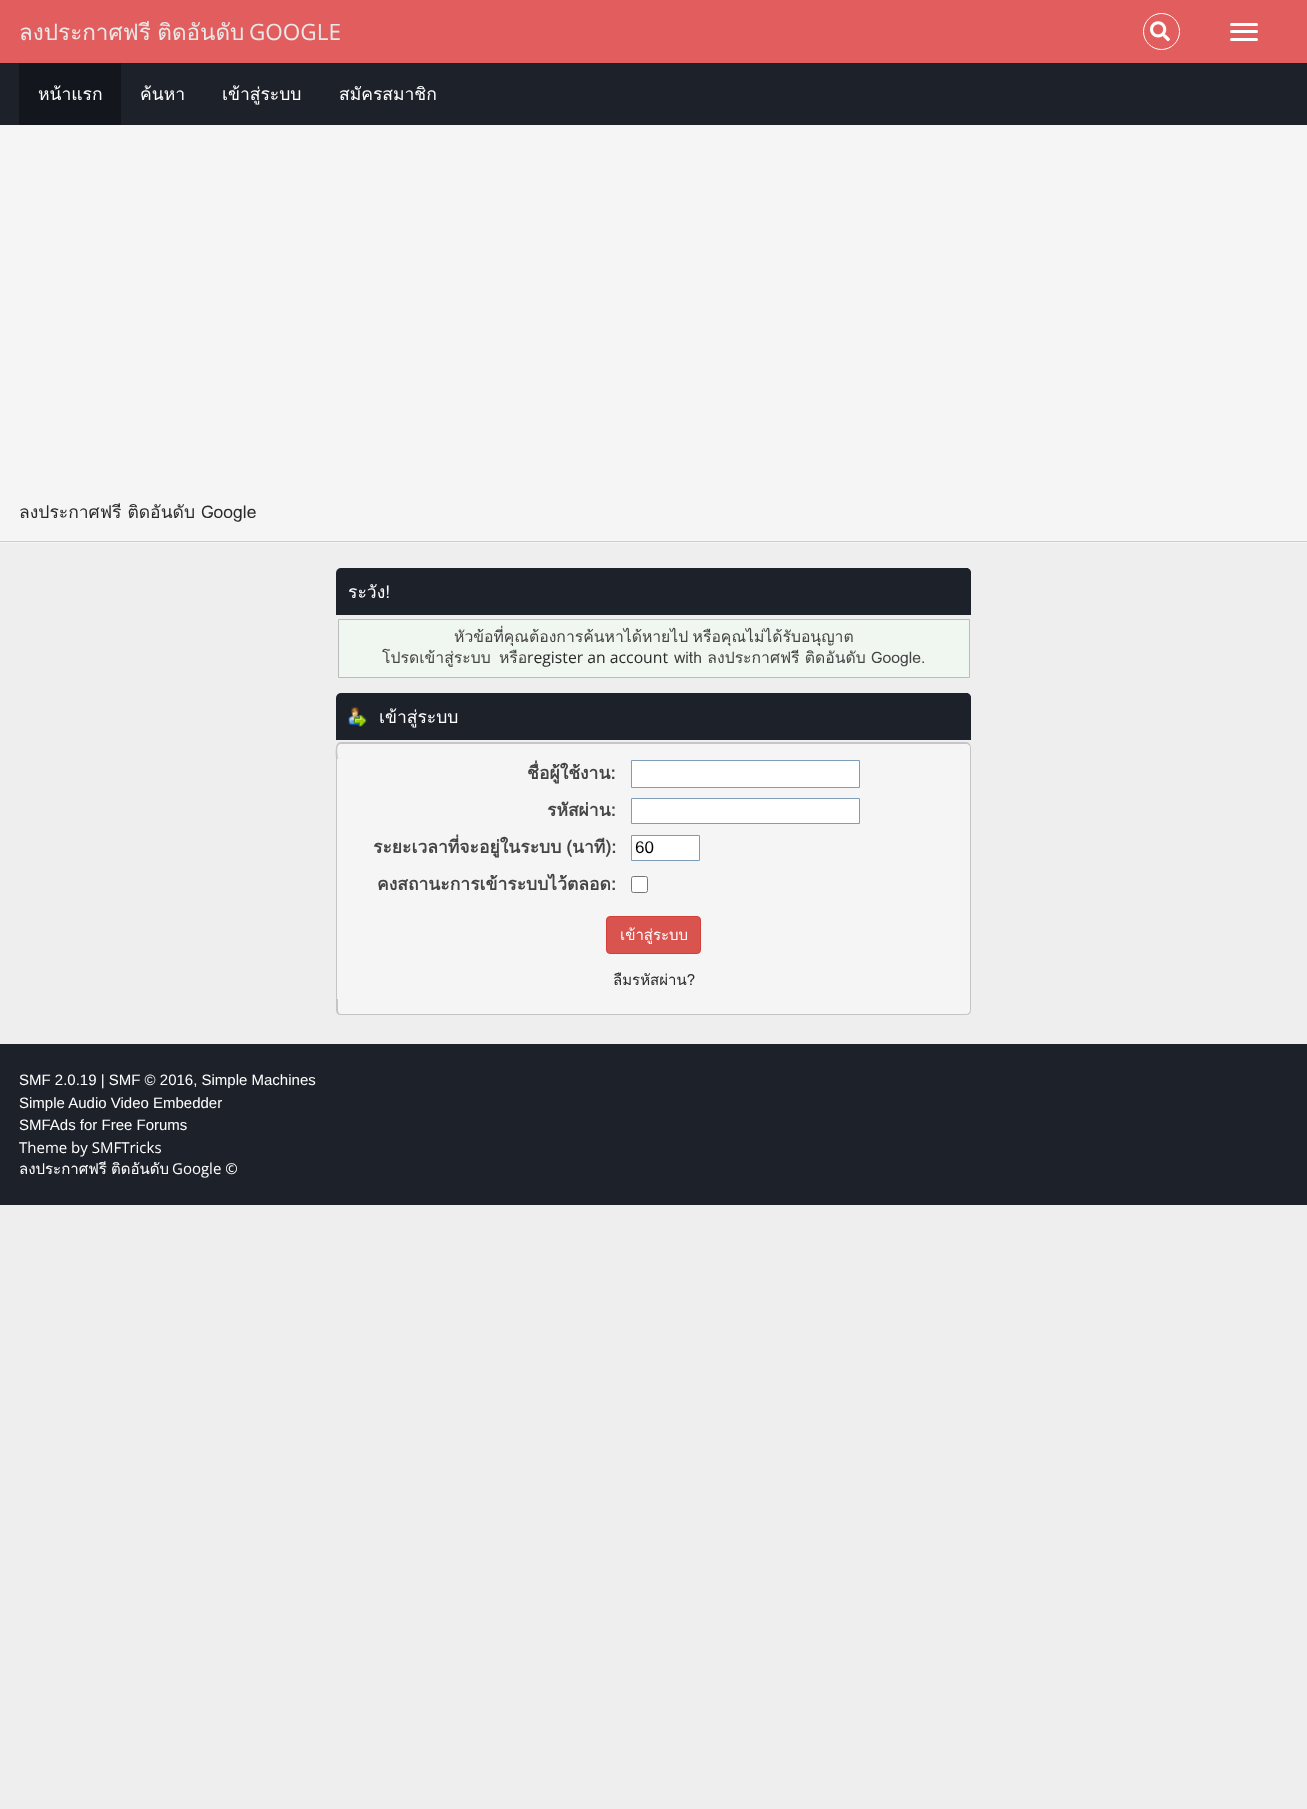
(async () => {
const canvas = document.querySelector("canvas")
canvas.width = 1307
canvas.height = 1809
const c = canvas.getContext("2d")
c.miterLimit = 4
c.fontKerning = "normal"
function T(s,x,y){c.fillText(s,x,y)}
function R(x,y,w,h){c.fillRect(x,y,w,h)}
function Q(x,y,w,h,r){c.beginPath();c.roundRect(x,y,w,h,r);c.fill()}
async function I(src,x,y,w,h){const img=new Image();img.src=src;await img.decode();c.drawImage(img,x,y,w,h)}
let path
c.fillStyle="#eee"
R(0,0,1307,1809)
c.fillStyle="#e25d5d"
R(0,0,1307,63)
c.wordSpacing="-1px"
c.font="22.5px Loma"
c.fillStyle="#e9e9e9"
T("ลงประกาศฟรี ติดอันดับ",19,40)
c.wordSpacing="0px"
c.font="22.5px Open Sans"
T("GOOGLE",249,40)
c.beginPath()
c.arc(1161.5,31.5,18,0,7)
c.strokeStyle="#fff"
c.stroke()
await I("1.png",1150,21,20,21)
c.fillStyle="#fff"
Q(1230,23,28,3,1.5)
Q(1230,30,28,3,1.5)
Q(1230,38,28,3,1.5)
c.fillStyle="#1d212a"
R(0,63,1307,62)
c.fillStyle="#13161c"
R(19,63,102,62)
c.font="17.5px Loma"
c.fillStyle="#fff"
T("หน้าแรก",38,100)
T("ค้นหา",140,100)
T("เข้าสู่ระบบ",222,100)
T("สมัครสมาชิก",339,100)
c.fillStyle="#f5f5f5"
R(0,125,1307,418)
c.fillStyle="#ccc"
R(0,541,1307,1)
c.fillStyle="#2a2a2a"
T("ลงประกาศฟรี ติดอันดับ Google",19,518)
c.fillStyle="#1d212a"
c.beginPath()
c.roundRect(336,568,635,47,[5,5,0,0])
c.fill()
c.beginPath()
c.roundRect(348,568,623,47,[0,5,0,0])
c.fill()
c.fillStyle="#fff"
T("ระวัง!",348,598)
c.fillStyle="#f0f6f0"
c.beginPath()
c.rect(338.5,619.5,631,58)
c.fill()
c.strokeStyle="#bbb"
c.stroke()
c.wordSpacing="-1px"
c.font="15.75px Loma"
c.fillStyle="#444"
T("หัวข้อที่คุณต้องการค้นหาได้หายไป หรือคุณไม่ได้รับอนุญาต",454,642)
c.wordSpacing="3px"
T("โปรดเข้าสู่ระบบ หรือ",382,663)
c.wordSpacing="0px"
c.font="15.75px Open Sans"
c.fillStyle="#2a2a2a"
T("register an account",527,663)
c.font="15.75px Loma"
c.fillStyle="#444"
T("with ลงประกาศฟรี ติดอันดับ Google.",674,663)
c.fillStyle="#1d212a"
c.beginPath()
c.roundRect(336,693,635,47,[5,5,0,0])
c.fill()
c.beginPath()
c.roundRect(348,693,623,47,[0,5,0,0])
c.fill()
await I("2.png",348,707,19,21)
c.font="17.5px Loma"
c.fillStyle="#fff"
T("เข้าสู่ระบบ",379,723)
c.fillStyle="#f5f5f5"
c.beginPath()
c.roundRect(336,743,635,16,[5,5,0,0])
c.fill()
c.fillStyle="#c5c5c5"
path = new Path2D("M341 742h625c3 0 5 3 5 6v11h-635c0-5-2-17 5-17zm0 2h625c2 0 4 1 4 4v11h-632c0-4-3-15 3-15z")
c.fill(path,"evenodd")
c.fillStyle="#f5f5f5"
c.beginPath()
c.roundRect(363,744,607,15,[5,5,0,0])
c.fill()
R(337,759,633,240)
c.fillStyle="#c5c5c5"
R(970,759,1,240)
R(336,759,1,240)
c.font="bold 17.5px Loma"
c.fillStyle="#444"
T("ชื่อผู้ใช้งาน:",527,779)
c.fillStyle="#fff"
c.beginPath()
c.rect(631.5,760.5,228,27)
c.fill()
c.strokeStyle="#7f9db9"
c.stroke()
c.fillStyle="#444"
T("รหัสผ่าน:",547,816)
c.fillStyle="#fff"
c.beginPath()
c.rect(631.5,798.5,228,25)
c.fill()
c.stroke()
c.wordSpacing="-1px"
c.fillStyle="#444"
T("ระยะเวลาที่จะอยู่ในระบบ (นาที):",373,853)
c.fillStyle="#fff"
c.beginPath()
c.rect(631.5,835.5,68,25)
c.fill()
c.stroke()
c.wordSpacing="0px"
c.font="17px Liberation Sans"
c.fillStyle="#000"
T("60",635,853)
c.font="bold 17.5px Loma"
c.fillStyle="#444"
T("คงสถานะการเข้าระบบไว้ตลอด:",377,890)
c.fillStyle="#fff"
c.beginPath()
c.roundRect(631.5,876.5,16,16,2)
c.fill()
c.strokeStyle="#767676"
c.stroke()
c.fillStyle="#d9534f"
c.beginPath()
c.roundRect(606.5,916.5,94,37,3.5)
c.fill()
c.strokeStyle="#d43f3a"
c.stroke()
c.font="15px Loma"
c.fillStyle="#fff"
T("เข้าสู่ระบบ",620,940)
c.fillStyle="#2a2a2a"
T("ลืมรหัสผ่าน?",613,985)
c.fillStyle="#f5f5f5"
c.beginPath()
c.roundRect(336,999,635,16,[0,0,5,5])
c.fill()
c.fillStyle="#c5c5c5"
path = new Path2D("M336 999h635v11c0 3-2 5-5 5h-625c-3 0-5-2-5-5zm2 0h632v11c0 2-2 4-4 4h-625c-2 0-3-2-3-4z")
c.fill(path,"evenodd")
c.fillStyle="#f5f5f5"
c.beginPath()
c.roundRect(363,999,607,15,[0,0,5,5])
c.fill()
c.fillStyle="#1d212a"
R(0,1044,1307,161)
c.font="15px Liberation Sans"
c.fillStyle="#fff"
T("SMF 2.0.19 | SMF © 2016, Simple Machines",19,1085)
T("Simple Audio Video Embedder",19,1108)
T("SMFAds for Free Forums",19,1130)
c.font="15px Open Sans"
T("Theme by SMFTricks",19,1153)
c.font="15px Loma"
T("ลงประกาศฟรี",19,1174)
T("ติดอันดับ",111,1174)
c.font="15px Open Sans"
T("Google ©",172,1174)
})()
